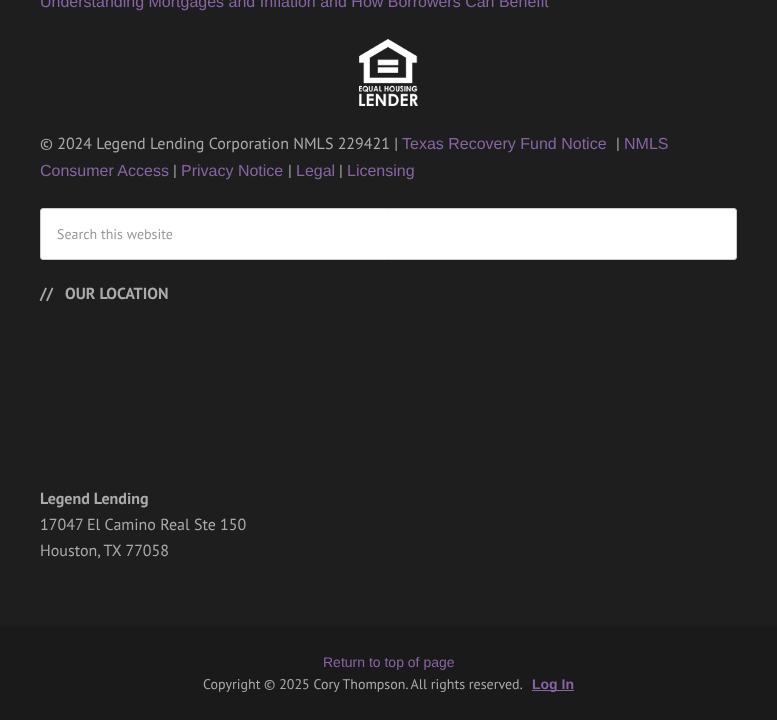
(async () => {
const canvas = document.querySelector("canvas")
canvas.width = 777
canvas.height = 720
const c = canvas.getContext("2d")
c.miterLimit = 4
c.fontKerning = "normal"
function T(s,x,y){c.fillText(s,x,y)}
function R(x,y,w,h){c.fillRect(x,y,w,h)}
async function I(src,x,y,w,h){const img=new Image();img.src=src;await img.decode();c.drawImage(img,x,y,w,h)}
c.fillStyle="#1e1e1e"
R(0,0,777,720)
c.font="16px Liberation Sans"
c.fillStyle="#8964a4"
T("Understanding Mortgages and Inflation and How Borrowers Can Benefit",40,7)
await I("1.png",359,39,59,67)
c.font="16px PT Sans"
c.fillStyle="#aaa"
T("© 2024 Legend Lending Corporation NMLS 229421 |",40,149)
c.font="16px Liberation Sans"
c.fillStyle="#8964a4"
T("Texas Recovery Fund Notice",402,149)
c.font="16px PT Sans"
c.fillStyle="#aaa"
T("|",616,149)
c.font="16px Liberation Sans"
c.fillStyle="#8964a4"
T("NMLS",624,149)
T("Consumer Access",40,176)
c.font="16px PT Sans"
c.fillStyle="#aaa"
T("|",173,176)
c.font="16px Liberation Sans"
c.fillStyle="#8964a4"
T("Privacy Notice",181,176)
c.font="16px PT Sans"
c.fillStyle="#aaa"
T("|",288,176)
c.font="16px Liberation Sans"
c.fillStyle="#8964a4"
T("Legal",296,176)
c.font="16px PT Sans"
c.fillStyle="#aaa"
T("|",339,176)
c.font="16px Liberation Sans"
c.fillStyle="#8964a4"
T("Licensing",347,176)
c.fillStyle="#fff"
c.beginPath()
c.roundRect(40.5,208.5,696,51,2.5)
c.fill()
c.strokeStyle="#ccc"
c.stroke()
c.font="14px PT Sans"
c.fillStyle="#999"
T("Search this website",57,239)
c.font="bold 16px PT Sans"
c.fillStyle="#aaa"
T("//",40,299)
T("OUR LOCATION",65,299)
T("Legend Lending",40,504)
c.font="16px PT Sans"
T("17047 El Camino Real Ste 150",40,530)
T("Houston, TX 77058",40,556)
c.fillStyle="#1a1a1a"
R(0,627,777,93)
c.font="14px Liberation Sans"
c.fillStyle="#8964a4"
T("Return to top of page",323,667)
c.font="14px PT Sans"
c.fillStyle="#aaa"
T("Copyright © 2025 Cory Thompson. All rights reserved.",203,689)
c.fillStyle="#8964a4"
R(532,690,42,1)
c.font="bold 14px Liberation Sans"
T("Log In",532,689)
})()
